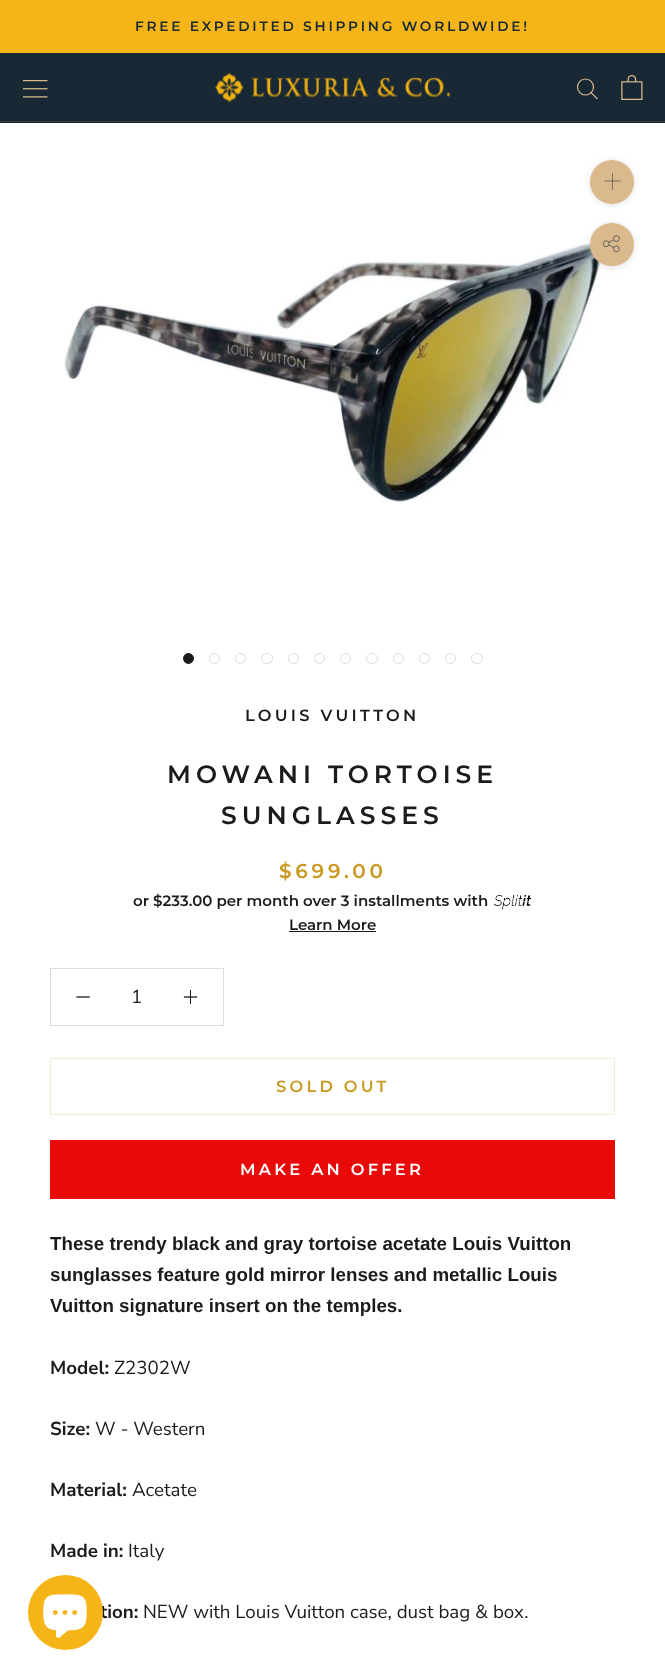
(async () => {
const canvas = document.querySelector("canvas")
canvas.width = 665
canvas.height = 1676
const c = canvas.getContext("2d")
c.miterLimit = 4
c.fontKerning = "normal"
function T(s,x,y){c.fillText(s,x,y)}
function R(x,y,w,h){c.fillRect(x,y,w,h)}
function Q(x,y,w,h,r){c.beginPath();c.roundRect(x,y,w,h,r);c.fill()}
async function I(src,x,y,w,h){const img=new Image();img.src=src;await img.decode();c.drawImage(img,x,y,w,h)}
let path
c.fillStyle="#fff"
R(0,0,665,1676)
c.fillStyle="#f5b518"
R(0,0,665,53)
c.letterSpacing="2.75px"
c.font="600 13.75px Montserrat"
c.fillStyle="#192835"
T("FREE EXPEDITED SHIPPING WORLDWIDE!",135,31)
R(0,53,665,70)
c.fillStyle="#363e42"
R(0,121,665,1)
await I("1.png",23,80,25,18)
await I("2.png",214,72,237,31)
c.save()
c.beginPath()
c.rect(576,78,23,21)
c.clip()
path = new Path2D("M597.5 99l-6.5-6.5")
c.strokeStyle="#dab98d"
c.lineWidth=1.2
c.lineCap="square"
c.stroke(path)
c.restore()
c.beginPath()
c.arc(585.5,87,8,0,7)
c.strokeStyle="#dab98d"
c.lineWidth=1.2
c.stroke()
await I("3.png",621,75,22,25)
c.fillStyle="#36363626"
c.filter="blur(3px)"
c.beginPath()
c.roundRect(590,161,44,44,22)
c.fill()
c.filter="none"
c.fillStyle="#dab98d"
c.beginPath()
c.arc(612,182,22,0,7)
c.fill()
c.fillStyle="#7a7161"
R(612,173,1,17)
path = new Path2D("M605 181h15")
c.strokeStyle="#19283580"
c.lineWidth=1.1
c.lineCap="square"
c.stroke(path)
await I("5.png",64,243,537,259)
c.fillStyle="#36363626"
c.filter="blur(3px)"
c.beginPath()
c.roundRect(590,224,44,44,22)
c.fill()
c.filter="none"
c.fillStyle="#dab98d"
Q(590,223,44,43,21.5)
await I("4.png",603,235,17,18)
c.fillStyle="#1c1b1b"
c.beginPath()
c.arc(188.5,658.5,5,0,7)
c.fill()
c.strokeStyle="#1c1b1b"
c.lineWidth=1
c.stroke()
c.beginPath()
c.arc(214.5,658.5,5,0,7)
c.strokeStyle="#ddd"
c.stroke()
c.beginPath()
c.arc(240.5,658.5,5,0,7)
c.stroke()
c.beginPath()
c.roundRect(261.5,653.5,11,10,5)
c.stroke()
c.beginPath()
c.arc(293.5,658.5,5,0,7)
c.stroke()
c.beginPath()
c.arc(319.5,658.5,5,0,7)
c.stroke()
c.beginPath()
c.arc(345.5,658.5,5,0,7)
c.stroke()
c.beginPath()
c.roundRect(366.5,653.5,11,10,5)
c.stroke()
c.beginPath()
c.arc(398.5,658.5,5,0,7)
c.stroke()
c.beginPath()
c.arc(424.5,658.5,5,0,7)
c.stroke()
c.beginPath()
c.arc(450.5,658.5,5,0,7)
c.stroke()
c.beginPath()
c.roundRect(471.5,653.5,11,10,5)
c.stroke()
c.letterSpacing="3.25px"
c.font="600 16.25px Montserrat"
T("LOUIS VUITTON",245,721)
c.letterSpacing="5px"
c.font="600 25px Montserrat"
T("MOWANI TORTOISE",167,783)
T("SUNGLASSES",221,824)
c.letterSpacing="3.75px"
c.font="600 20px Montserrat"
c.fillStyle="#c99922"
T("$699.00",279,878)
c.letterSpacing="0px"
c.font="600 15px Montserrat"
c.fillStyle="#1c1b1b"
T("or $233.00 per month over 3 installments with",133,906)
await I("6.png",493,894,39,16)
T("Learn More",289,930)
R(289,931,87,1)
c.strokeRect(50.5,968.5,173,57)
path = new Path2D("M77 997h12")
c.strokeStyle="#1c1b1b"
c.lineWidth=1.3
c.stroke(path)
c.font="18.75px Nunito Sans"
T("1",131,1003)
R(190,990,1,14)
path = new Path2D("M184.5 997h12")
c.stroke(path)
c.strokeStyle="#f4ebd3"
c.lineWidth=1
c.strokeRect(50.5,1058.5,564,56)
c.letterSpacing="3.25px"
c.font="600 16.25px Montserrat"
c.fillStyle="#c99922"
T("SOLD OUT",276,1092)
c.fillStyle="#ea0909"
R(50,1140,565,59)
c.fillStyle="#fff"
T("MAKE AN OFFER",240,1175)
c.letterSpacing="0px"
c.font="bold 18.75px Liberation Sans"
c.fillStyle="#1c1b1b"
T("These trendy black and gray tortoise acetate Louis Vuitton",50,1250)
T("sunglasses feature gold mirror lenses and metallic Louis",50,1281)
T("Vuitton signature insert on the temples.",50,1312)
c.font="bold 18.75px Nunito Sans"
T("Model:",50,1374)
c.font="18.75px Nunito Sans"
T("Z2302W",114,1374)
c.font="bold 18.75px Nunito Sans"
T("Size:",50,1435)
c.font="18.75px Nunito Sans"
T("W - Western",95,1435)
c.font="bold 18.75px Nunito Sans"
T("Material:",50,1496)
c.font="18.75px Nunito Sans"
T("Acetate",132,1496)
c.font="bold 18.75px Nunito Sans"
T("Made in:",50,1557)
c.font="18.75px Nunito Sans"
T("Italy",128,1557)
c.font="bold 18.75px Nunito Sans"
T("tion:",100,1618)
c.font="18.75px Nunito Sans"
T("NEW with Louis Vuitton case, dust bag & box.",143,1618)
c.fillStyle="#f5b518"
c.beginPath()
c.arc(65.5,1612.5,37.5,0,7)
c.fill()
await I("7.png",43,1594,44,44)
})()
